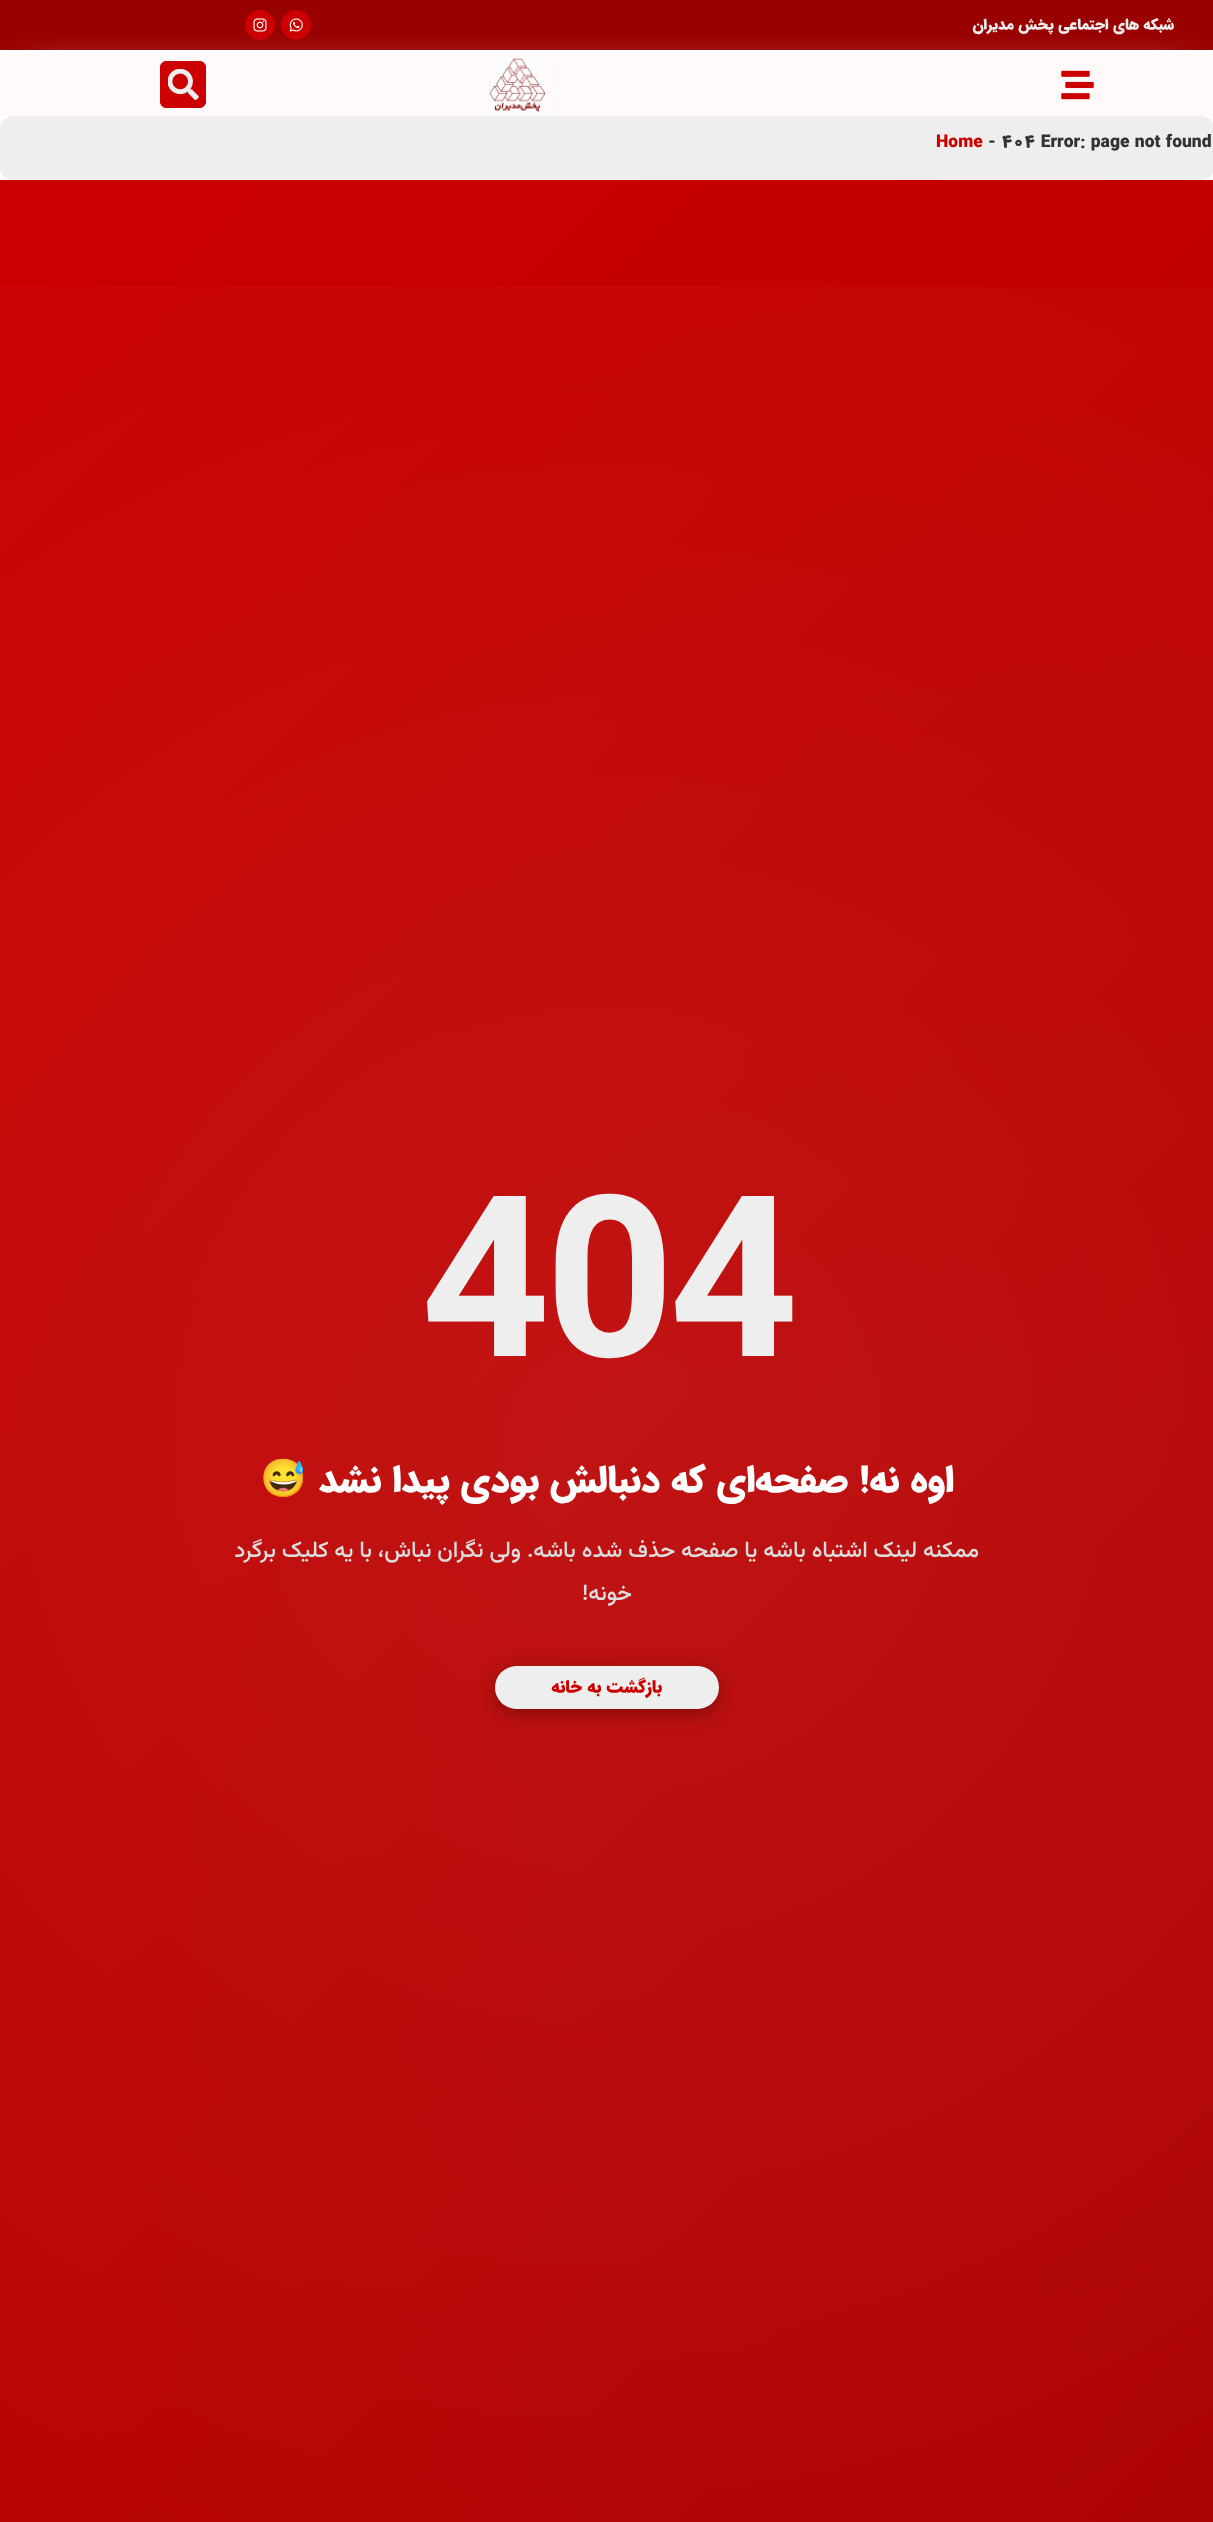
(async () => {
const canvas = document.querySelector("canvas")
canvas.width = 1213
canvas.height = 2522
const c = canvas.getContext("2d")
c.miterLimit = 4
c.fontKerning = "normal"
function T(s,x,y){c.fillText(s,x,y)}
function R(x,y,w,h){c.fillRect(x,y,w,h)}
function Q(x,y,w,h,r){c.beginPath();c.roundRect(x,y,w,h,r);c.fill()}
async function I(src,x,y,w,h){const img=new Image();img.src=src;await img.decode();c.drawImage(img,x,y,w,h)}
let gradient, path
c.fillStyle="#fff"
R(0,0,1213,2522)
c.fillStyle="#900"
R(0,0,1213,50)
c.fillStyle="#c00"
c.beginPath()
c.arc(296,25,15,0,7)
c.fill()
await I("4.png",289,18,14,14)
c.beginPath()
c.arc(260,25,15,0,7)
c.fill()
await I("5.png",253,18,14,14)
c.fillStyle="#fafafaf0"
c.filter="blur(20px)"
c.beginPath()
c.rect(24,78,1166,15)
c.fill()
c.filter="none"
c.fillStyle="#fff9f9"
R(0,54,1213,62)
await I("1.png",1061,70,33,30)
await I("2.png",489,58,57,55)
c.fillStyle="#c00"
c.beginPath()
c.roundRect(160.5,61.5,45,46,5.5)
c.fill()
c.strokeStyle="#c00"
c.stroke()
await I("3.png",168,69,31,31)
c.direction="rtl"
c.font="900 15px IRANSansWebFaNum"
c.fillStyle="#eee"
T("شبکه های اجتماعی پخش مدیران",1174,29)
Q(0,116,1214,64,13)
path = new Path2D("M12.5 117.5h1188.5c6.5 0 11.5 5 11.5 11.5v38.5c0 6-5 11.5-11.5 11.5h-1188.5c-6 0-11.5-5.5-11.5-11.5v-38.5c0-6.5 5.5-11.5 11.5-11.5z")
c.strokeStyle="#eee"
c.lineWidth=2.5
c.setLineDash([7.5,5])
c.stroke(path)
c.direction="ltr"
c.font="900 17.5px IRANSansWebFaNum"
c.fillStyle="#333"
T("- 404 Error: page not found",988,147)
c.fillStyle="#c00"
T("Home",936,147)
gradient = c.createLinearGradient(-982,1162,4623,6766)
gradient.addColorStop(0,"#c00")
gradient.addColorStop(.5,"#900")
gradient.addColorStop(1,"#333")
c.fillStyle = gradient
R(0,180,1213,2342)
gradient = c.createRadialGradient(607,1441,0,607,1441,2239)
gradient.addColorStop(0,"#ffffff14")
gradient.addColorStop(.7,"#ffffff00")
c.fillStyle = gradient
R(0,286,1213,2236)
c.letterSpacing="-5px"
c.font="bold 225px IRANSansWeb"
c.fillStyle="#eee"
T("404",421,1356)
c.letterSpacing="0px"
c.direction="rtl"
c.font="900 37.5px IRANSansWeb"
c.fillStyle="#fff"
T("اوه نه! صفحه‌ای که دنبالش بودی پیدا نشد",954,1491)
c.font="bold 37.5px Noto Color Emoji"
T("😅",307,1491)
c.font="500 22.5px Vazirmatn"
c.fillStyle="#ddd"
T("ممکنه لینک اشتباه باشه یا صفحه حذف شده باشه. ولی نگران نباش، با یه کلیک برگرد",979,1557)
T("خونه!",632,1600)
c.fillStyle="#0000004d"
c.filter="blur(9.5px)"
c.beginPath()
c.roundRect(495,1671,224,43,21.5)
c.fill()
c.filter="none"
c.fillStyle="#eee"
Q(495,1666,224,43,21.5)
c.font="900 17.5px IRANSansWebFaNum"
c.fillStyle="#c00"
T("بازگشت به خانه",662,1692)
})()
